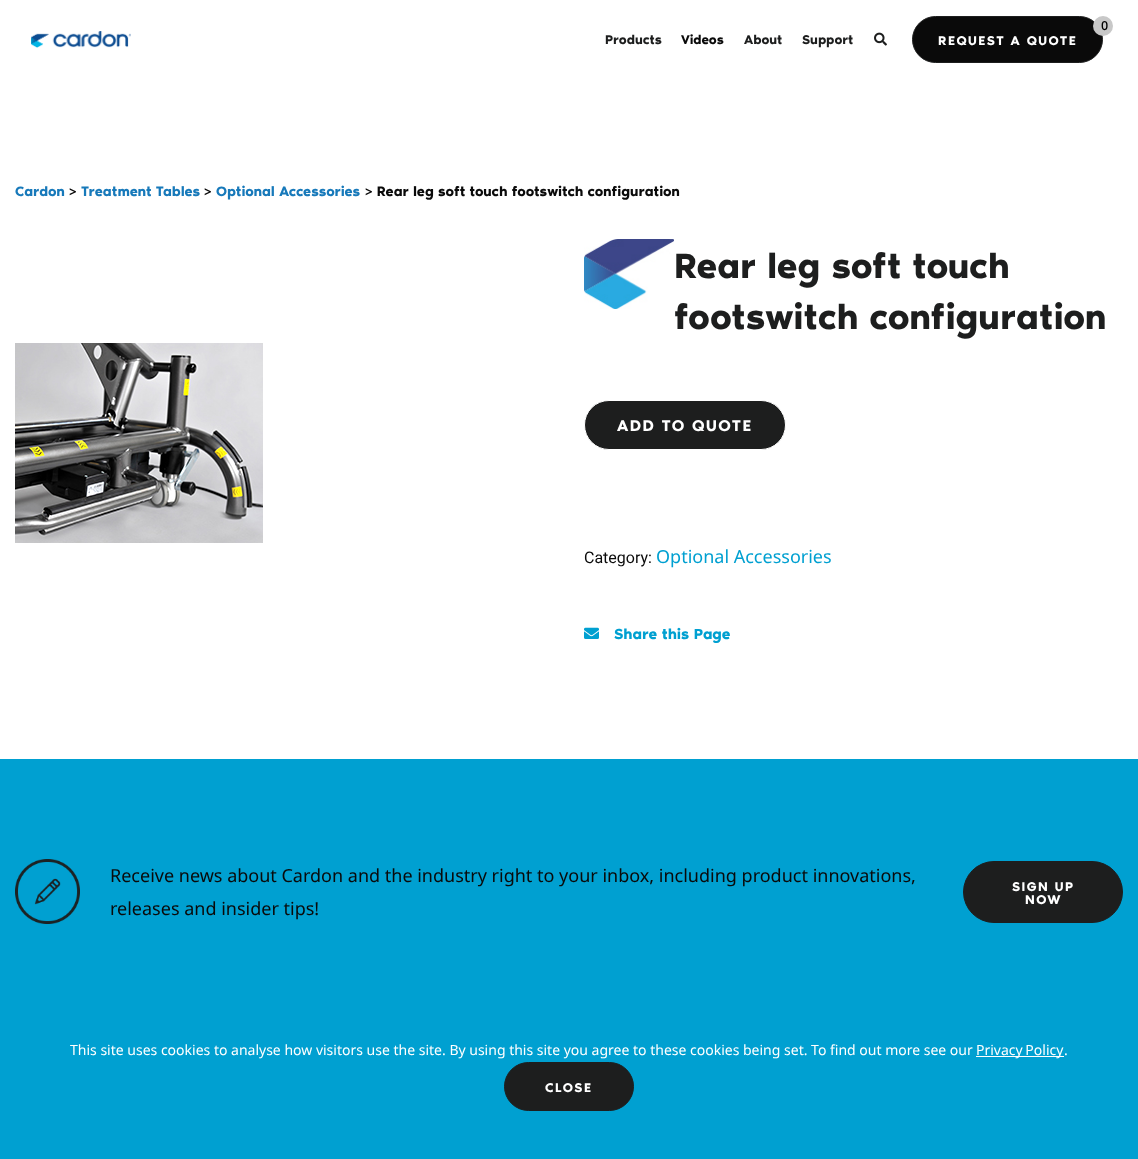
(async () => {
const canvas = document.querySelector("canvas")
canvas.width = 1138
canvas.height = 1159
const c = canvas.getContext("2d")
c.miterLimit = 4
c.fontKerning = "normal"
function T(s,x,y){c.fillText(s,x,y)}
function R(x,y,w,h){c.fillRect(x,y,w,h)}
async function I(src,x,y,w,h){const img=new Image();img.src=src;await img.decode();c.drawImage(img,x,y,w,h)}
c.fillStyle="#fff"
R(0,0,1138,1159)
await I("1.png",31,31,100,17)
c.fillStyle="#0a0a0a"
c.beginPath()
c.roundRect(912.5,16.5,190,46,23)
c.fill()
c.strokeStyle="#1d1e1e"
c.stroke()
c.fillStyle="#c8c8c8"
c.beginPath()
c.arc(1103,26,10,0,7)
c.fill()
c.font="bold 12px Noto Sans"
c.fillStyle="#000"
T("0",1101,30)
c.font="600 13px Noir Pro"
c.fillStyle="#1d1e1e"
T("Products",605,44)
c.fillStyle="#0a0a0a"
T("Videos",681,44)
c.fillStyle="#1d1e1e"
T("About",744,44)
T("Support",802,44)
await I("2.png",874,32,13,14)
c.letterSpacing="1.5px"
c.fillStyle="#fff"
T("REQUEST A QUOTE",938,45)
c.letterSpacing="0px"
c.font="600 14px Noir Pro"
c.fillStyle="#1779ba"
T("Cardon",15,196)
c.fillStyle="#0a0a0a"
T(">",69,196)
c.fillStyle="#1779ba"
T("Treatment Tables",81,196)
c.fillStyle="#0a0a0a"
T(">",204,196)
c.fillStyle="#1779ba"
T("Optional Accessories",216,196)
c.fillStyle="#0a0a0a"
T("> Rear leg soft touch footswitch configuration",365,196)
await I("3.png",15,343,248,200)
await I("4.png",584,239,90,70)
c.font="600 36px Noir Pro"
c.fillStyle="#1d1e1e"
T("Rear leg soft touch",674,278)
T("footswitch configuration",674,329)
c.beginPath()
c.roundRect(584.5,400.5,201,49,24.5)
c.fill()
c.strokeStyle="#fff"
c.stroke()
c.letterSpacing="1.5px"
c.font="600 16px Noir Pro"
c.fillStyle="#fff"
T("ADD TO QUOTE",617,431)
c.letterSpacing="0px"
c.font="16px Roboto"
c.fillStyle="#0a0a0a"
T("Category:",584,563)
c.font="18px Noto Sans"
c.fillStyle="#00a0d1"
T("Optional Accessories",656,563)
await I("5.png",584,627,15,12)
c.font="600 15px Noir Pro"
T("Share this Page",614,639)
R(0,759,1138,400)
await I("6.png",15,859,65,65)
c.font="18px Noto Sans"
c.fillStyle="#0a0a0a"
T("Receive news about Cardon and the industry right to your inbox, including product innovations,",110,882)
T("releases and insider tips!",110,915)
c.fillStyle="#1d1e1e"
c.beginPath()
c.roundRect(963.5,861.5,159,61,30.5)
c.fill()
c.strokeStyle="#1d1e1e"
c.stroke()
c.letterSpacing="1.5px"
c.font="600 13px Noir Pro"
c.fillStyle="#fff"
T("SIGN UP",1012,891)
T("NOW",1025,904)
c.letterSpacing="0px"
c.font="14px Noto Sans"
T("This site uses cookies to analyse how visitors use the site. By using this site you agree to these cookies being set. To find out more see our",70,1055)
R(976,1056,88,1)
c.wordSpacing="-1px"
T("Privacy Policy",976,1055)
c.wordSpacing="0px"
T(".",1064,1055)
c.fillStyle="#1d1e1e"
c.beginPath()
c.roundRect(504.5,1062.5,129,48,24)
c.fill()
c.stroke()
c.letterSpacing="1.5px"
c.font="600 13px Noir Pro"
c.fillStyle="#fff"
T("CLOSE",545,1092)
})()
